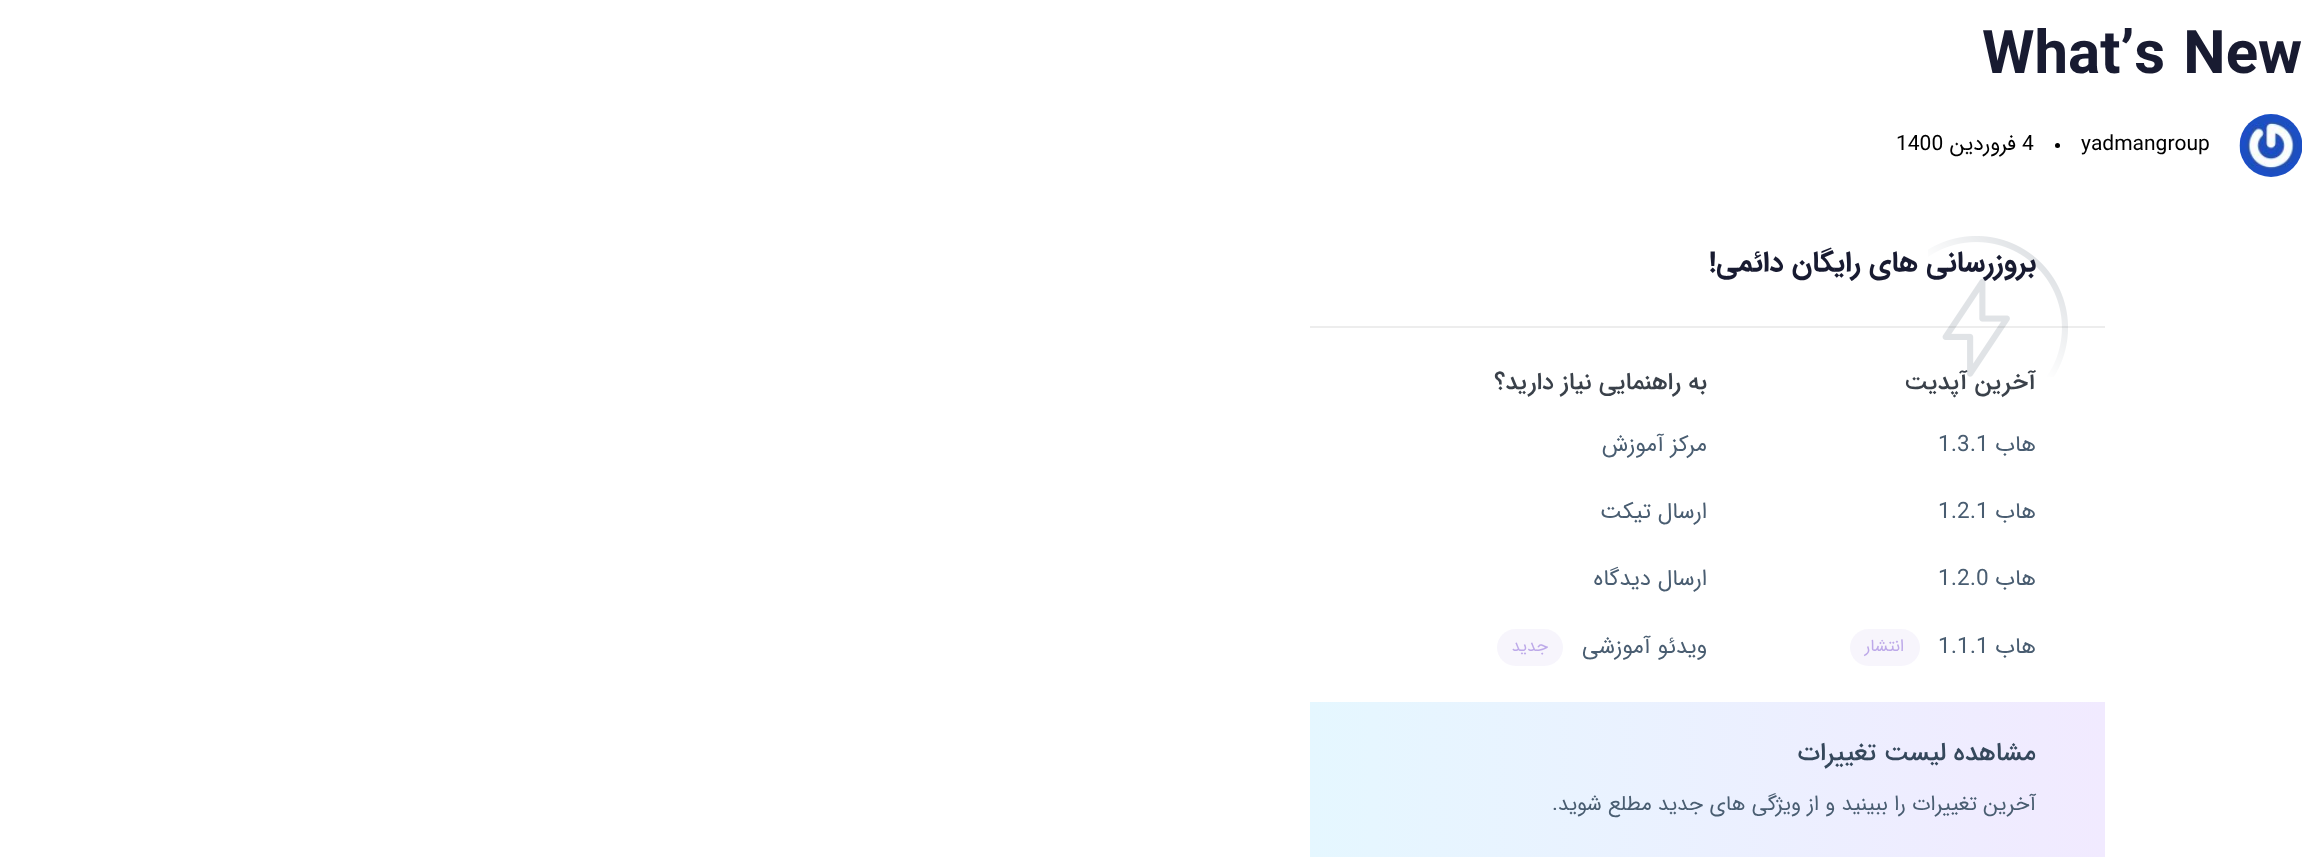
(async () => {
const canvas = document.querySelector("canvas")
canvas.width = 2302
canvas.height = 863
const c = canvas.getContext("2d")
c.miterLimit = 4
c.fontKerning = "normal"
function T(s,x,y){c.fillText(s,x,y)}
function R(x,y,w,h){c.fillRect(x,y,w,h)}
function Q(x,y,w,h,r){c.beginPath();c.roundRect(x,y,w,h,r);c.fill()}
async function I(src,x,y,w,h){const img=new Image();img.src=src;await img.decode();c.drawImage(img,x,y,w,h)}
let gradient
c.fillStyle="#fff"
R(0,0,2302,863)
c.font="bold 60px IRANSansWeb"
c.fillStyle="#181b31"
T("What’s New",1982,73)
await I("1.png",2239,114,63,63)
c.font="21px IRANSansWeb"
c.fillStyle="#000"
T("yadmangroup",2081,150)
c.beginPath()
c.arc(2057.5,145.5,2.5,0,7)
c.fill()
T("4",2022,150)
c.direction="rtl"
T("فروردین",2016,150)
c.direction="ltr"
T("1400",1896,150)
await I("2.png",1928,236,140,141)
c.fillStyle="#00000012"
R(1310,326,795,2)
c.direction="rtl"
c.font="bold 28.5px IRANSansWeb"
c.fillStyle="#181b31"
T("بروزرسانی های رایگان دائمی!",2036,271)
c.font="500 24px IRANSansWeb"
c.fillStyle="#3a414a"
T("آخرین آپدیت",2036,389)
c.font="22.5px IRANSansWeb"
c.fillStyle="#495d71"
T("هاب",2036,451)
c.direction="ltr"
T("1.3.1",1938,451)
c.direction="rtl"
T("هاب",2036,518)
c.direction="ltr"
T("1.2.1",1938,518)
c.direction="rtl"
T("هاب",2036,585)
c.direction="ltr"
T("1.2.0",1938,585)
c.direction="rtl"
T("هاب",2036,653)
c.direction="ltr"
T("1.1.1",1938,653)
c.fillStyle="#bda9e91f"
Q(1850,629,70,37,18.5)
c.direction="rtl"
c.font="17px IRANSansWeb"
c.fillStyle="#bda9e9"
T("انتشار",1904,651)
c.font="500 24px IRANSansWeb"
c.fillStyle="#3a414a"
T("به راهنمایی نیاز دارید؟",1707,389)
c.font="22.5px IRANSansWeb"
c.fillStyle="#495d71"
T("مرکز آموزش",1707,451)
T("ارسال تیکت",1707,518)
T("ارسال دیدگاه",1707,585)
T("ویدئو آموزشی",1707,653)
c.fillStyle="#bda9e91f"
Q(1497,629,66,37,18.5)
c.font="17px IRANSansWeb"
c.fillStyle="#bda9e9"
T("جدید",1548,651)
gradient = c.createLinearGradient(1310,779,2105,779)
gradient.addColorStop(0,"#e5f7ff")
gradient.addColorStop(1,"#f1eaff")
c.fillStyle = gradient
R(1310,702,795,155)
c.font="500 25.5px IRANSansWeb"
c.fillStyle="#35485c"
T("مشاهده لیست تغییرات",2036,760)
c.font="21px IRANSansWeb"
c.fillStyle="#495d71"
T("آخرین تغییرات را ببینید و از ویژگی های جدید مطلع شوید.",2036,810)
})()
